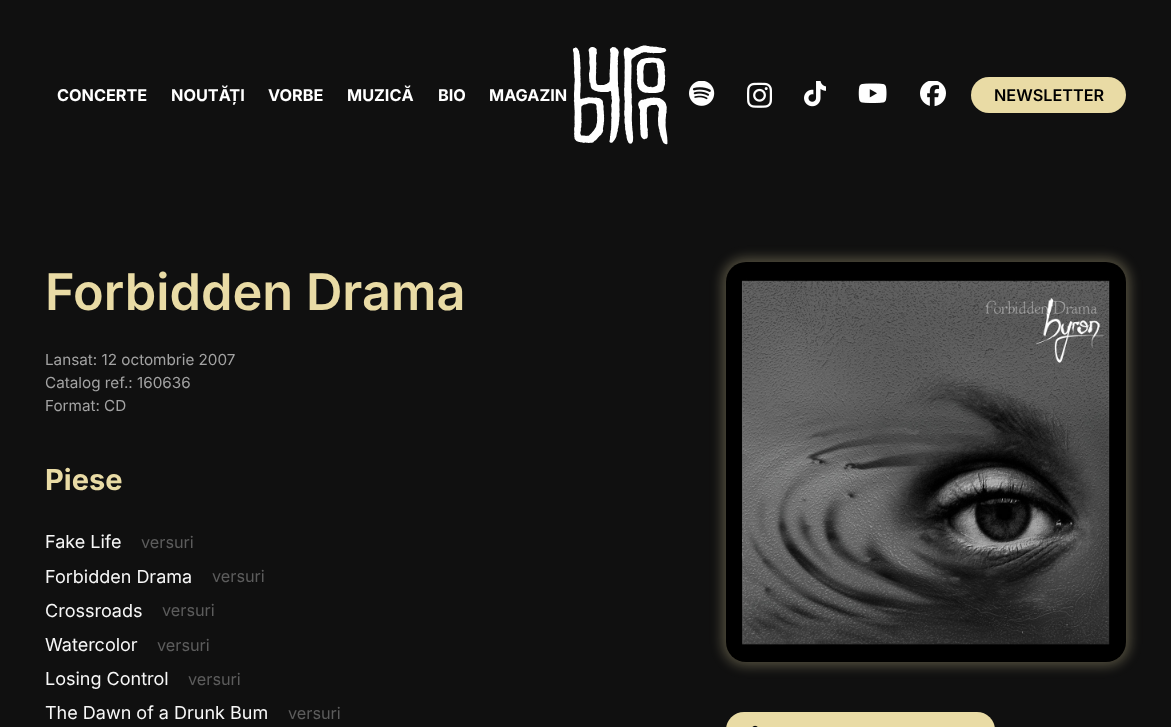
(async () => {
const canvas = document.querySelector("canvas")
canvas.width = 1171
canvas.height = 727
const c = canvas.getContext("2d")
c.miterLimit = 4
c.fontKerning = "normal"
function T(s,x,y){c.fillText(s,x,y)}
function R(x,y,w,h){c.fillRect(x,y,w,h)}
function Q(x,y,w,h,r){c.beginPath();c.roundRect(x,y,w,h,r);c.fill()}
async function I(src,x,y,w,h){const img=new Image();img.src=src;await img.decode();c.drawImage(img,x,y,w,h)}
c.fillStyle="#101010"
R(0,0,1171,727)
c.font="bold 16.25px Inter"
c.fillStyle="#fff"
T("CONCERTE",57,101)
T("NOUTĂȚI",171,101)
T("VORBE",268,101)
T("MUZICĂ",347,101)
T("BIO",438,101)
T("MAGAZIN",489,101)
await I("1.png",572,45,96,100)
await I("2.png",689,81,26,25)
await I("3.png",747,82,25,26)
await I("4.png",804,81,22,26)
await I("5.png",858,83,29,20)
await I("6.png",920,81,26,26)
c.fillStyle="#e9dba5"
Q(971,77,155,36,18)
c.font="600 16.25px Inter"
c.fillStyle="#000"
T("NEWSLETTER",994,101)
c.font="600 50.5px Inter"
c.fillStyle="#e9dba5"
T("Forbidden Drama",45,310)
c.font="15.25px Inter"
c.fillStyle="#a3a3a3"
T("Lansat: 12 octombrie 2007",45,365)
T("Catalog ref.: 160636",45,388)
T("Format: CD",45,411)
c.font="bold 29px Inter"
c.fillStyle="#e9dba5"
T("Piese",45,490)
c.font="18px Inter"
c.fillStyle="#f7f7f7"
T("Fake Life",45,548)
c.font="16.25px Inter"
c.fillStyle="#5c5c5c"
T("versuri",141,548)
c.font="18px Inter"
c.fillStyle="#f7f7f7"
T("Forbidden Drama",45,583)
c.font="16.25px Inter"
c.fillStyle="#5c5c5c"
T("versuri",212,582)
c.font="18px Inter"
c.fillStyle="#f7f7f7"
T("Crossroads",45,617)
c.font="16.25px Inter"
c.fillStyle="#5c5c5c"
T("versuri",162,616)
c.font="18px Inter"
c.fillStyle="#f7f7f7"
T("Watercolor",45,651)
c.font="16.25px Inter"
c.fillStyle="#5c5c5c"
T("versuri",157,651)
c.font="18px Inter"
c.fillStyle="#f7f7f7"
T("Losing Control",45,685)
c.font="16.25px Inter"
c.fillStyle="#5c5c5c"
T("versuri",188,685)
c.font="18px Inter"
c.fillStyle="#f7f7f7"
T("The Dawn of a Drunk Bum",45,719)
c.font="16.25px Inter"
c.fillStyle="#5c5c5c"
T("versuri",288,719)
c.fillStyle="#e9dba54d"
c.filter="blur(6px)"
c.beginPath()
c.roundRect(722,258,408,408,24)
c.fill()
c.filter="none"
await I("7.png",726,262,400,400)
c.fillStyle="#e9dba5"
Q(726,712,269,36,21)
await I("8.png",752,725,6,2)
})()
